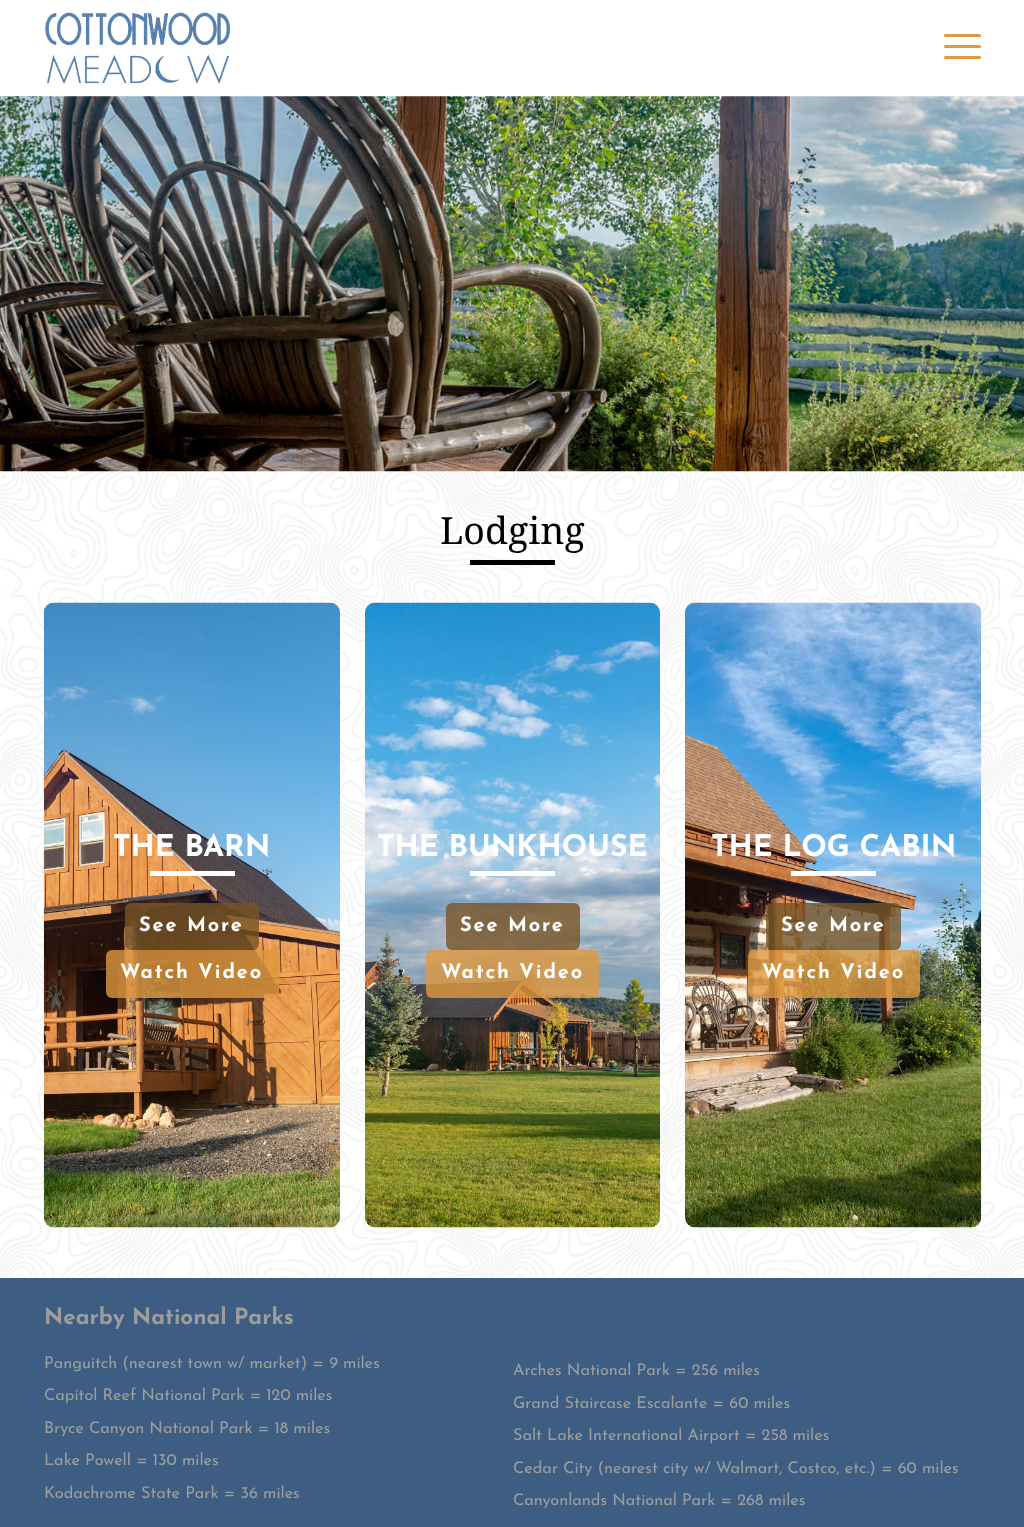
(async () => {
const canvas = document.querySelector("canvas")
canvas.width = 1024
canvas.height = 1527
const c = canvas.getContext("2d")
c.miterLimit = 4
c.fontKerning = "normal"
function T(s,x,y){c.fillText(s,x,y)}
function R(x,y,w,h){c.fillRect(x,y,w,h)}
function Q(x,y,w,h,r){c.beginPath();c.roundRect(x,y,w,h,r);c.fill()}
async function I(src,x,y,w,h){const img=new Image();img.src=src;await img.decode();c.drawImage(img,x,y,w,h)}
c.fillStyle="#fff"
R(0,0,1024,1527)
await I("1.png",45,12,185,72)
c.fillStyle="#df993f"
Q(944,34,37,3,1.5)
Q(944,45,37,3,1.5)
Q(944,56,37,3,1.5)
await I("3.png",0,471,1024,807)
await I("2.png",0,96,1024,376)
c.font="37.5px Droid Serif"
c.fillStyle="#000"
T("Lodging",440,544)
R(470,560,85,5)
await I("4.png",43,602,297,626)
c.font="bold 30px Josefin Sans"
c.fillStyle="#fff"
T("THE BARN",113,856)
R(150,871,85,5)
c.fillStyle="#775426cc"
Q(125,903,134,47,6)
c.letterSpacing="1.9px"
c.font="bold 20px Josefin Sans"
c.fillStyle="#fff"
T("See More",139,931)
c.fillStyle="#df993fcc"
Q(106,950,173,48,6)
c.fillStyle="#fff"
T("Watch Video",120,978)
await I("5.png",365,602,295,626)
c.letterSpacing="0px"
c.font="bold 30px Josefin Sans"
T("THE BUNKHOUSE",377,856)
R(470,871,85,5)
c.fillStyle="#775426cc"
Q(446,903,134,47,6)
c.letterSpacing="1.9px"
c.font="bold 20px Josefin Sans"
c.fillStyle="#fff"
T("See More",460,931)
c.fillStyle="#df993fcc"
Q(426,950,173,48,6)
c.fillStyle="#fff"
T("Watch Video",441,978)
await I("6.png",685,602,297,626)
c.letterSpacing="0px"
c.font="bold 30px Josefin Sans"
T("THE LOG CABIN",711,856)
R(791,871,85,5)
c.fillStyle="#775426cc"
Q(766,903,135,47,6)
c.letterSpacing="1.9px"
c.font="bold 20px Josefin Sans"
c.fillStyle="#fff"
T("See More",781,931)
c.fillStyle="#df993fcc"
Q(748,950,172,48,6)
c.fillStyle="#fff"
T("Watch Video",762,978)
await I("7.png",0,1277,1024,1)
c.fillStyle="#3d5e82"
R(0,1278,1024,249)
c.letterSpacing="0px"
c.font="bold 22.5px Josefin Sans"
c.fillStyle="#9d9d9d"
T("Nearby National Parks",44,1324)
c.font="16.25px Josefin Sans"
T("Panguitch (nearest town w/ market) = 9 miles",44,1368)
T("Capitol Reef National Park = 120 miles",44,1400)
T("Bryce Canyon National Park = 18 miles",44,1433)
T("Lake Powell = 130 miles",44,1465)
T("Kodachrome State Park = 36 miles",44,1498)
T("Arches National Park = 256 miles",513,1375)
T("Grand Staircase Escalante = 60 miles",513,1408)
T("Salt Lake International Airport = 258 miles",513,1440)
T("Cedar City (nearest city w/ Walmart, Costco, etc.) = 60 miles",513,1473)
T("Canyonlands National Park = 268 miles",513,1505)
})()
